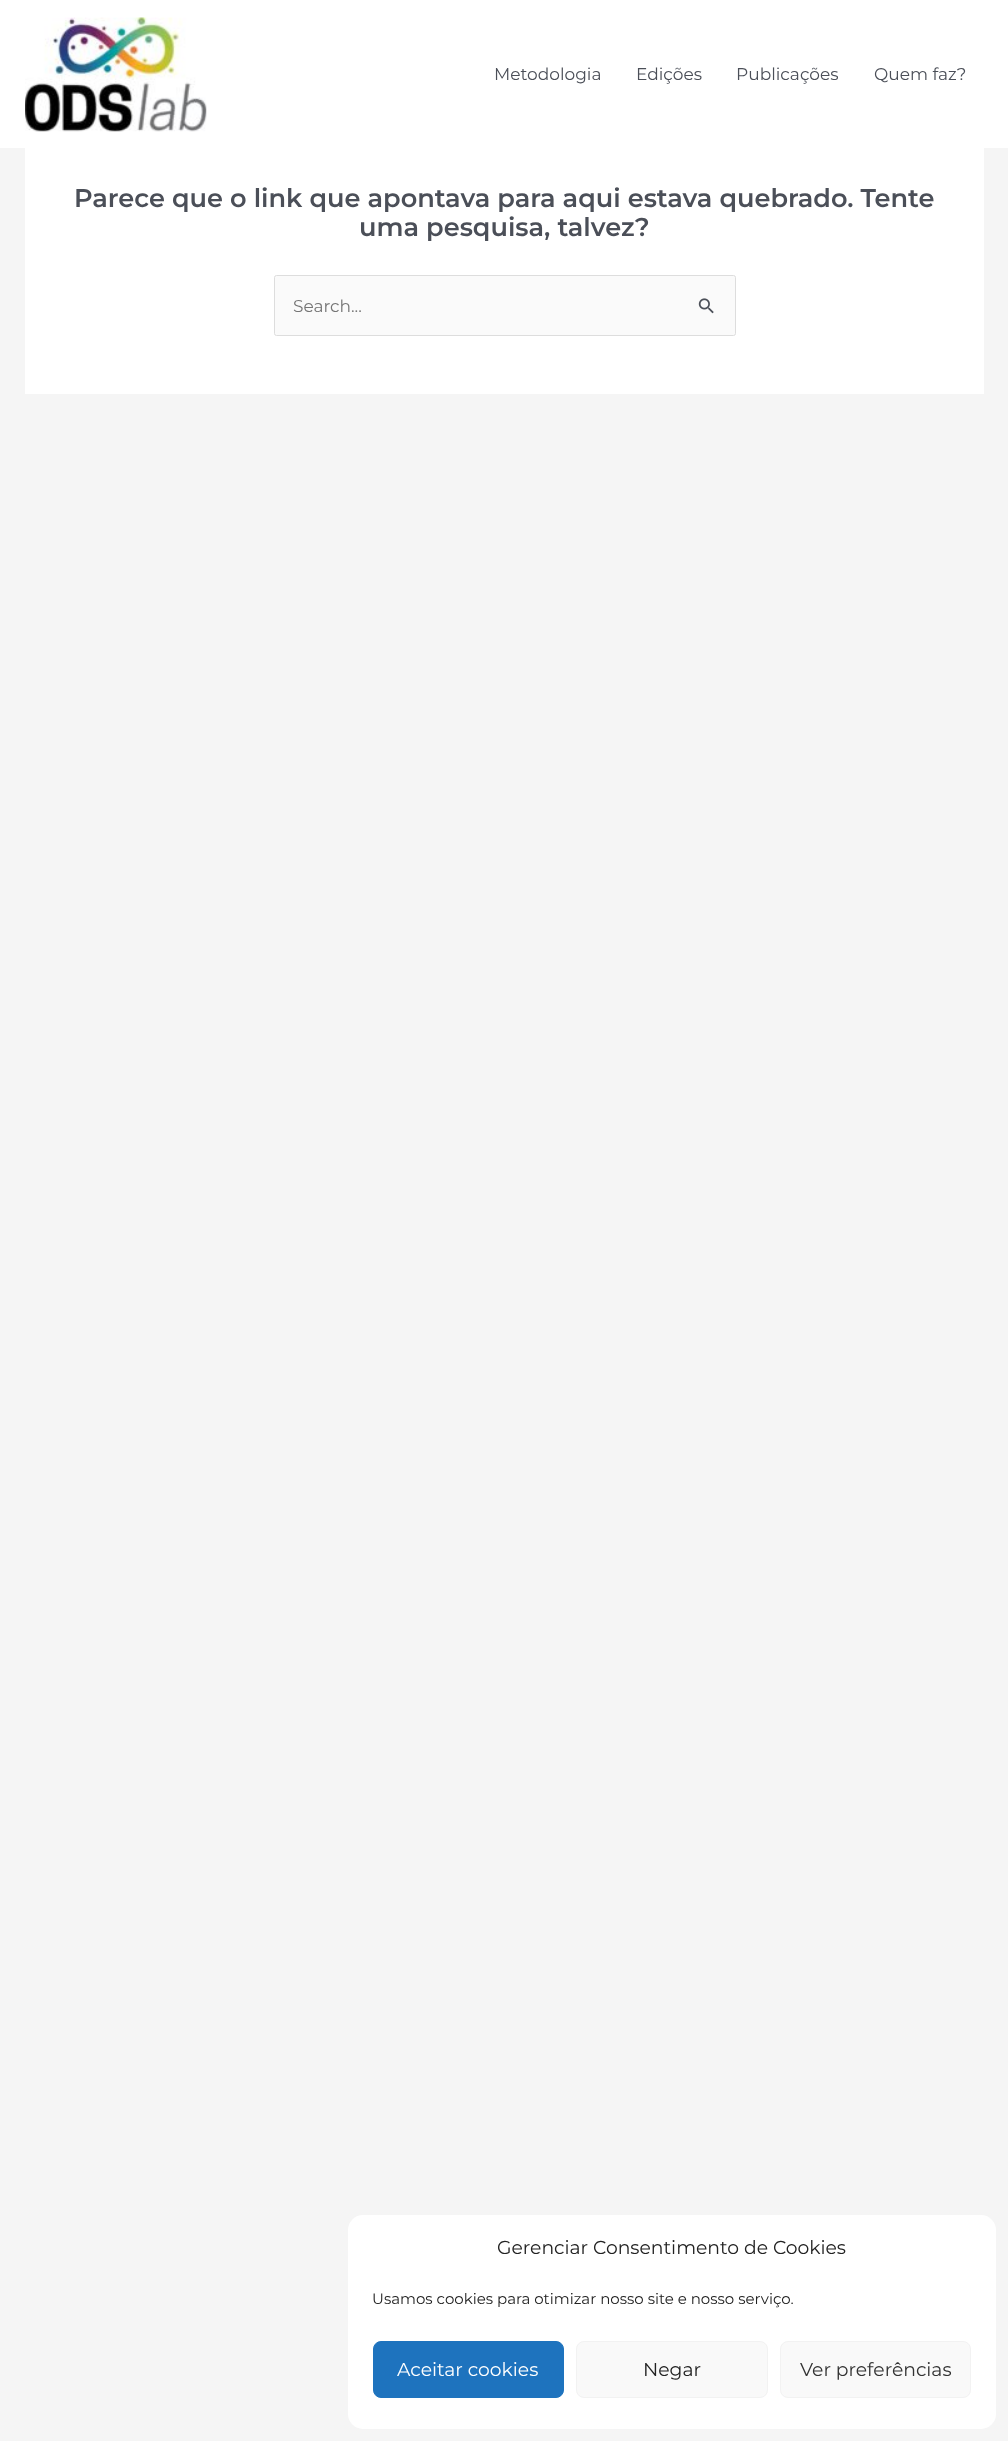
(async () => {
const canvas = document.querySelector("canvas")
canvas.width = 1008
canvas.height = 2441
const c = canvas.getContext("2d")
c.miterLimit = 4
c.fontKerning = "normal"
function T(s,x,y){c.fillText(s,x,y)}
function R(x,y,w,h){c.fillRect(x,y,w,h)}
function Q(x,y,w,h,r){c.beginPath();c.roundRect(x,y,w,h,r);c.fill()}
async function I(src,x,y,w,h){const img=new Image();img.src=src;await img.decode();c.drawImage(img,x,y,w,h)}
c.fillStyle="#f5f5f5"
R(0,0,1008,2441)
c.fillStyle="#fff"
R(0,0,1008,148)
await I("1.png",25,17,182,115)
c.font="17px Montserrat"
c.fillStyle="#4b4f58"
T("Metodologia",494,80)
T("Edições",636,80)
T("Publicações",736,80)
T("Quem faz?",874,80)
c.fillStyle="#fff"
R(25,148,959,246)
c.font="600 25.65px Montserrat"
c.fillStyle="#4b4f58"
T("Parece que o link que apontava para aqui estava quebrado. Tente",74,207)
T("uma pesquisa, talvez?",359,236)
c.fillStyle="#fafafa"
c.beginPath()
c.roundRect(274.5,275.5,461,60,2)
c.fill()
c.strokeStyle="#ddd"
c.stroke()
c.font="17px Montserrat"
c.fillStyle="#757575"
T("Search...",293,312)
await I("2.png",698,298,16,16)
c.fillStyle="#fff"
Q(348,2215,648,214,15)
c.font="18.75px Montserrat"
c.fillStyle="#222"
T("Gerenciar Consentimento de Cookies",497,2254)
c.font="15px Montserrat"
T("Usamos cookies para otimizar nosso site e nosso serviço.",372,2304)
c.fillStyle="#1e73be"
c.beginPath()
c.roundRect(373.5,2341.5,190,56,7.5)
c.fill()
c.strokeStyle="#1e73be"
c.stroke()
c.font="18.75px Montserrat"
c.fillStyle="#fff"
T("Aceitar cookies",397,2376)
c.fillStyle="#f9f9f9"
c.beginPath()
c.roundRect(576.5,2341.5,191,56,7.5)
c.fill()
c.strokeStyle="#f2f2f2"
c.stroke()
c.fillStyle="#222"
T("Negar",643,2376)
c.fillStyle="#f9f9f9"
c.beginPath()
c.roundRect(780.5,2341.5,190,56,7.5)
c.fill()
c.stroke()
c.fillStyle="#333"
T("Ver preferências",800,2376)
})()
